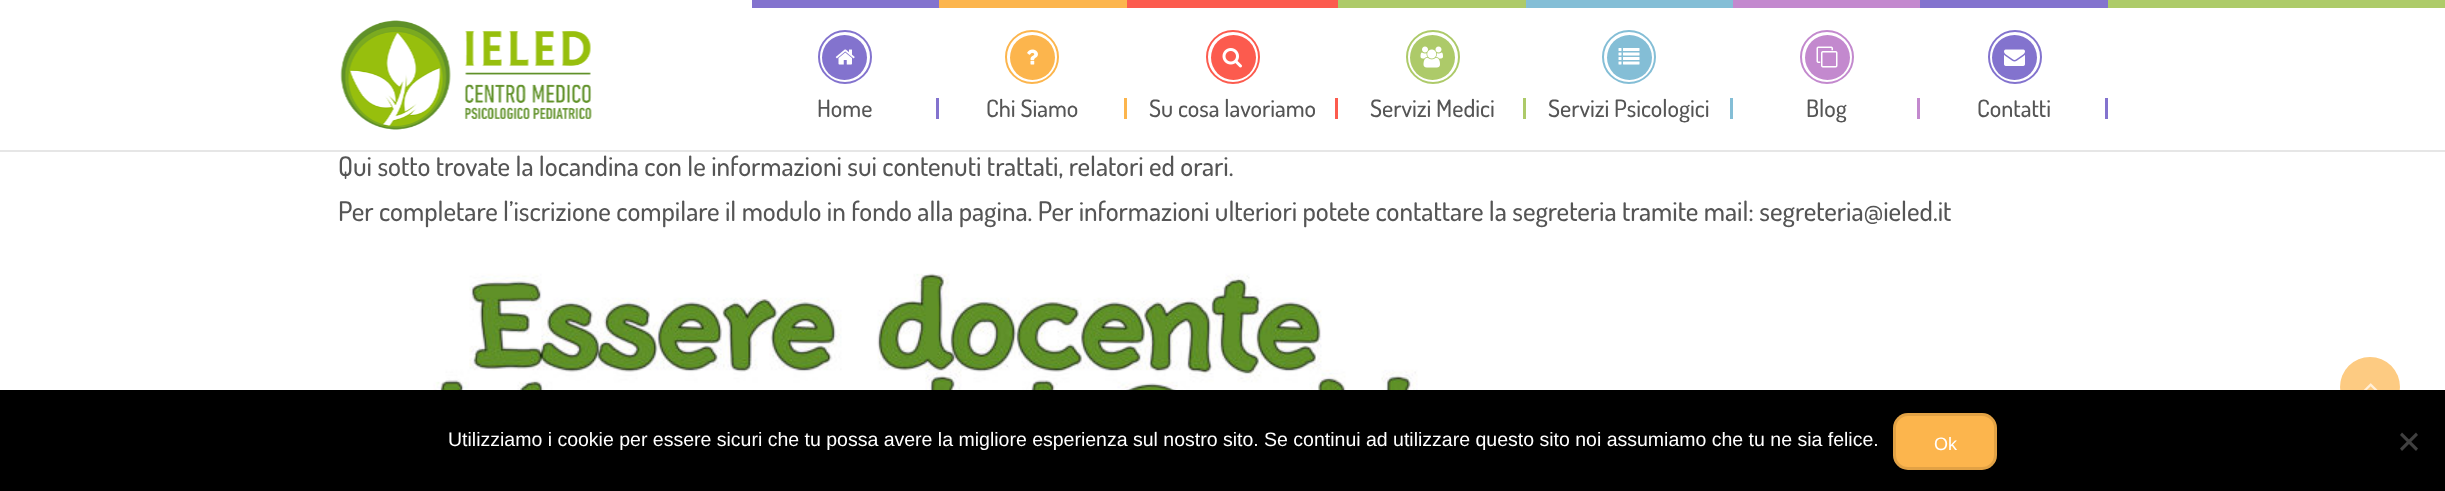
(async () => {
const canvas = document.querySelector("canvas")
canvas.width = 2445
canvas.height = 491
const c = canvas.getContext("2d")
c.miterLimit = 4
c.fontKerning = "normal"
function T(s,x,y){c.fillText(s,x,y)}
function R(x,y,w,h){c.fillRect(x,y,w,h)}
function Q(x,y,w,h,r){c.beginPath();c.roundRect(x,y,w,h,r);c.fill()}
async function I(src,x,y,w,h){const img=new Image();img.src=src;await img.decode();c.drawImage(img,x,y,w,h)}
let path
c.fillStyle="#fff"
R(0,0,2445,491)
c.fillStyle="#e6e6e6"
R(0,150,2445,2)
c.fillStyle="#adcb69"
R(2108,0,337,8)
await I("1.png",340,20,252,110)
c.fillStyle="#8373ce"
R(752,0,187,8)
c.beginPath()
c.arc(844.5,57.5,22.5,0,7)
c.fill()
c.beginPath()
c.arc(845,57,26,0,7)
c.strokeStyle="#8373ce"
c.lineWidth=2
c.stroke()
await I("2.png",835,49,20,16)
c.font="500 24px Dosis"
c.fillStyle="#555"
T("Home",817,117)
c.fillStyle="#8373ce"
R(936,98,3,21)
c.fillStyle="#fcb54d"
R(939,0,188,8)
c.beginPath()
c.arc(1032.5,57.5,22.5,0,7)
c.fill()
c.beginPath()
c.arc(1032,57,26,0,7)
c.strokeStyle="#fcb54d"
c.stroke()
await I("3.png",1027,49,11,16)
c.fillStyle="#555"
T("Chi Siamo",986,117)
c.fillStyle="#fcb54d"
R(1124,98,3,21)
c.fillStyle="#fc5b4e"
R(1127,0,211,8)
c.beginPath()
c.arc(1233.5,57.5,22.5,0,7)
c.fill()
c.beginPath()
c.arc(1233,57,26,0,7)
c.strokeStyle="#fc5b4e"
c.stroke()
await I("4.png",1222,48,20,20)
c.fillStyle="#555"
T("Su cosa lavoriamo",1149,117)
c.fillStyle="#fc5b4e"
R(1335,98,3,21)
c.fillStyle="#adca69"
R(1338,0,188,8)
c.beginPath()
c.arc(1432.5,57.5,22.5,0,7)
c.fill()
c.beginPath()
c.arc(1433,57,26,0,7)
c.strokeStyle="#adca69"
c.stroke()
await I("5.png",1420,46,23,22)
c.fillStyle="#555"
T("Servizi Medici",1370,117)
c.fillStyle="#adca69"
R(1523,98,3,21)
c.fillStyle="#84bed6"
R(1526,0,207,8)
c.beginPath()
c.arc(1629.5,57.5,22.5,0,7)
c.fill()
c.beginPath()
c.arc(1629,57,26,0,7)
c.strokeStyle="#84bed6"
c.stroke()
await I("6.png",1618,48,22,17)
c.fillStyle="#555"
T("Servizi Psicologici",1548,117)
c.fillStyle="#84bed6"
R(1730,98,3,21)
c.fillStyle="#c389ce"
R(1733,0,187,8)
c.beginPath()
c.arc(1827.5,57.5,22.5,0,7)
c.fill()
c.beginPath()
c.arc(1827,57,26,0,7)
c.strokeStyle="#c389ce"
c.stroke()
await I("7.png",1816,46,22,22)
c.fillStyle="#555"
T("Blog",1806,117)
c.fillStyle="#c389ce"
R(1917,98,3,21)
c.fillStyle="#8373ce"
R(1920,0,188,8)
c.beginPath()
c.arc(2014.5,57.5,22.5,0,7)
c.fill()
c.beginPath()
c.arc(2015,57,26,0,7)
c.strokeStyle="#8373ce"
c.stroke()
await I("8.png",2004,49,21,17)
c.fillStyle="#555"
T("Contatti",1977,117)
c.fillStyle="#8373ce"
R(2105,98,3,21)
c.font="500 27px Dosis"
c.fillStyle="#555"
T("Qui sotto trovate la locandina con le informazioni sui contenuti trattati, relatori ed orari.",338,176)
T("Per completare l’iscrizione compilare il modulo in fondo alla pagina. Per informazioni ulteriori potete contattare la segreteria tramite mail: segreteria@ieled.it",338,221)
await I("9.png",373,273,1056,117)
c.fillStyle="#fdcb82"
c.beginPath()
c.arc(2370,387,30,0,7)
c.fill()
await I("10.png",2363,383,15,7)
c.fillStyle="#000"
R(0,390,2445,101)
c.font="19.5px Liberation Sans"
c.fillStyle="#fff"
T("Utilizziamo i cookie per essere sicuri che tu possa avere la migliore esperienza sul nostro sito. Se continui ad utilizzare questo sito noi assumiamo che tu ne sia felice.",448,446)
c.fillStyle="#fcb54d"
Q(1893,413,104,57,15)
c.beginPath()
c.roundRect(1894.5,414.5,101,54,13.5)
c.strokeStyle="#0000001a"
c.lineWidth=3
c.stroke()
c.font="18px Liberation Sans"
c.fillStyle="#fff"
T("Ok",1934,450)
c.fillStyle="#404040"
path = new Path2D("M2416 432.5l2 2.5l-16 16l-2-2.5z")
c.fill(path)
path = new Path2D("M2400 435l2-2.5l16 16l-2 2.5z")
c.fill(path)
})()
